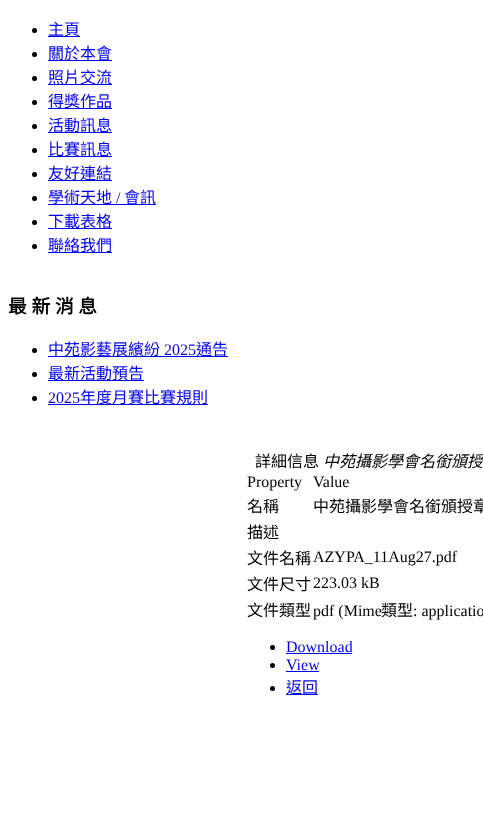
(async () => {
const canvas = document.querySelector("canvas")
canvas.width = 483
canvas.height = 832
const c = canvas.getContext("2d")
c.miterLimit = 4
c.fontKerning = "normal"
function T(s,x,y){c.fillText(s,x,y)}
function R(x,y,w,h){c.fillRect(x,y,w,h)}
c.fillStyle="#fff"
R(0,0,483,832)
c.fillStyle="#000"
c.beginPath()
c.arc(34.5,30.5,2.5,0,7)
c.fill()
c.fillStyle="#00e"
R(48,36,32,1)
c.font="16px Noto Sans CJK TC"
T("主頁",48,35)
c.fillStyle="#000"
c.beginPath()
c.arc(34.5,54.5,2.5,0,7)
c.fill()
c.fillStyle="#00e"
R(48,60,64,1)
T("關於本會",48,59)
c.fillStyle="#000"
c.beginPath()
c.arc(34.5,78.5,2.5,0,7)
c.fill()
c.fillStyle="#00e"
R(48,84,64,1)
T("照片交流",48,83)
c.fillStyle="#000"
c.beginPath()
c.arc(34.5,102.5,2.5,0,7)
c.fill()
c.fillStyle="#00e"
R(48,108,64,1)
T("得獎作品",48,107)
c.fillStyle="#000"
c.beginPath()
c.arc(34.5,126.5,2.5,0,7)
c.fill()
c.fillStyle="#00e"
R(48,132,64,1)
T("活動訊息",48,131)
c.fillStyle="#000"
c.beginPath()
c.arc(34.5,150.5,2.5,0,7)
c.fill()
c.fillStyle="#00e"
R(48,156,64,1)
T("比賽訊息",48,155)
c.fillStyle="#000"
c.beginPath()
c.arc(34.5,174.5,2.5,0,7)
c.fill()
c.fillStyle="#00e"
R(48,180,64,1)
T("友好連結",48,179)
c.fillStyle="#000"
c.beginPath()
c.arc(34.5,198.5,2.5,0,7)
c.fill()
c.fillStyle="#00e"
R(48,204,108,1)
T("學術天地",48,203)
c.font="16px Liberation Serif"
T("/",116,203)
c.font="16px Noto Sans CJK TC"
T("會訊",124,203)
c.fillStyle="#000"
c.beginPath()
c.arc(34.5,222.5,2.5,0,7)
c.fill()
c.fillStyle="#00e"
R(48,228,64,1)
T("下載表格",48,227)
c.fillStyle="#000"
c.beginPath()
c.arc(34.5,246.5,2.5,0,7)
c.fill()
c.fillStyle="#00e"
R(48,252,64,1)
T("聯絡我們",48,251)
c.wordSpacing="0.5px"
c.font="bold 18.75px Noto Sans CJK TC"
c.fillStyle="#000"
T("最 新 消 息",8,313)
c.beginPath()
c.arc(34.5,350.5,2.5,0,7)
c.fill()
c.fillStyle="#00e"
R(48,356,180,1)
c.wordSpacing="0px"
c.font="16px Noto Sans CJK TC"
T("中苑影藝展繽紛",48,355)
c.font="16px Liberation Serif"
T("2025",164,355)
c.font="16px Noto Sans CJK TC"
T("通告",196,355)
c.fillStyle="#000"
c.beginPath()
c.arc(34.5,374.5,2.5,0,7)
c.fill()
c.fillStyle="#00e"
R(48,380,96,1)
T("最新活動預告",48,379)
c.fillStyle="#000"
c.beginPath()
c.arc(34.5,398.5,2.5,0,7)
c.fill()
c.font="16px Liberation Serif"
c.fillStyle="#00e"
T("2025",48,403)
R(48,404,160,1)
c.font="16px Noto Sans CJK TC"
T("年度月賽比賽規則",80,403)
c.fillStyle="#000"
T("詳細信息",255,467)
c.font="italic 16px Noto Sans CJK TC"
T("中苑攝影學會名銜頒授",323,467)
c.font="16px Liberation Serif"
T("Property",247,487)
T("Value",313,487)
c.font="16px Noto Sans CJK TC"
T("名稱",247,512)
T("中苑攝影學會名銜頒授章",313,512)
T("描述",247,538)
T("文件名稱",247,564)
c.font="16px Liberation Serif"
T("AZYPA_11Aug27.pdf",313,562)
c.font="16px Noto Sans CJK TC"
T("文件尺寸",247,590)
c.font="16px Liberation Serif"
T("223.03 kB",313,588)
c.font="16px Noto Sans CJK TC"
T("文件類型",247,616)
c.font="16px Liberation Serif"
T("pdf (Mime",313,616)
c.font="16px Noto Sans CJK TC"
T("類型",381,616)
c.font="16px Liberation Serif"
T(": applicatio",413,616)
c.beginPath()
c.arc(272.5,647.5,2.5,0,7)
c.fill()
c.fillStyle="#00e"
T("Download",286,652)
R(286,653,66,1)
c.fillStyle="#000"
c.beginPath()
c.arc(272.5,665.5,2.5,0,7)
c.fill()
c.fillStyle="#00e"
T("View",286,670)
R(286,671,33,1)
c.fillStyle="#000"
c.beginPath()
c.arc(272.5,688.5,2.5,0,7)
c.fill()
c.fillStyle="#00e"
R(286,694,32,1)
c.font="16px Noto Sans CJK TC"
T("返回",286,693)
})()
